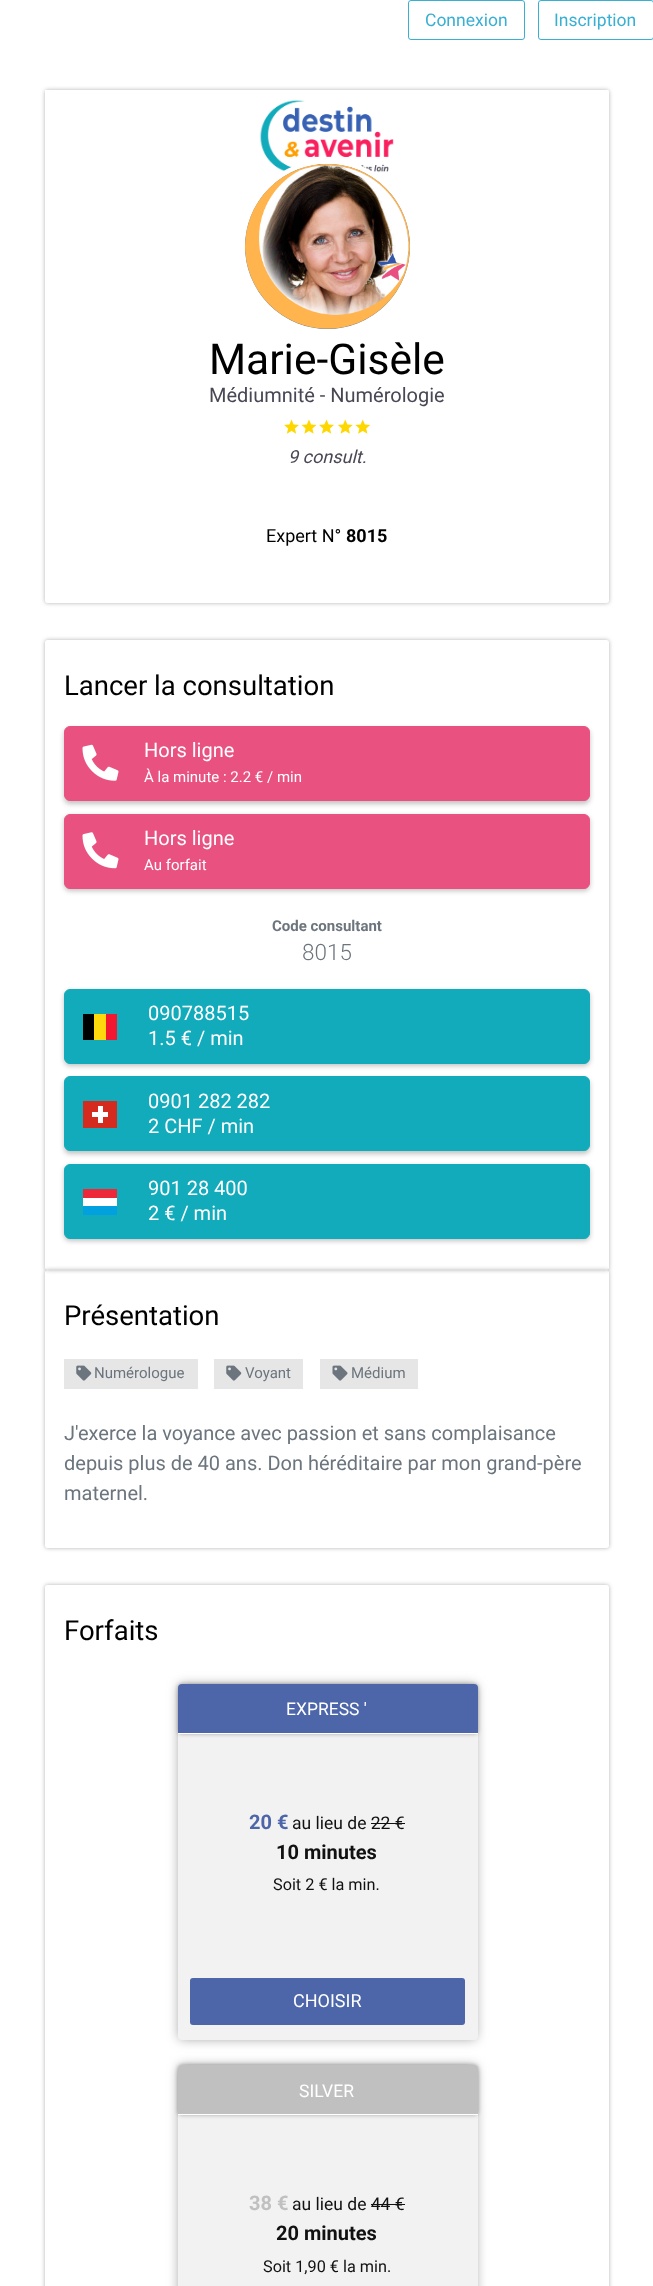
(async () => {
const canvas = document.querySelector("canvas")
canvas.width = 653
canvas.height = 2286
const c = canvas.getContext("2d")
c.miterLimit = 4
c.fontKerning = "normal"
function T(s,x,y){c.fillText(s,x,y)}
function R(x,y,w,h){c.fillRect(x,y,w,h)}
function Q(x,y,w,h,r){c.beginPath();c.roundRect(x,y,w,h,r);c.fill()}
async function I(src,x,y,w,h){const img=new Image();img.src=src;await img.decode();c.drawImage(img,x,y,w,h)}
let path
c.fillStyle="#fff"
R(0,0,653,2286)
c.beginPath()
c.roundRect(408.5,.5,116,39,2.5)
c.strokeStyle="#39afd1"
c.stroke()
c.font="17.5px Roboto"
c.fillStyle="#39afd1"
T("Connexion",425,26)
c.beginPath()
c.roundRect(538.5,.5,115,39,2.5)
c.stroke()
T("Inscription",554,26)
c.save()
path = new Path2D("M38 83h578v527h-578zm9.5 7h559c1.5 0 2.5 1 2.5 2.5v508c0 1.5-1 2.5-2.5 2.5h-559c-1.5 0-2.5-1-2.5-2.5v-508c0-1.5 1-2.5 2.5-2.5z")
c.clip(path,"evenodd")
c.fillStyle="#0000004d"
c.filter="blur(2px)"
c.beginPath()
c.roundRect(45,90,564,513,2.5)
c.fill()
c.filter="none"
c.restore()
await I("1.png",45,90,564,94)
c.fillStyle="#00000080"
c.beginPath()
c.arc(327.5,246.5,85,0,7)
c.fill()
c.strokeStyle="#fff"
c.lineWidth=5
c.stroke()
await I("2.png",245,163,165,166)
c.font="42.5px Roboto"
c.fillStyle="#000"
T("Marie-Gisèle",209,374)
c.font="20px Roboto"
c.fillStyle="#494754"
T("Médiumnité - Numérologie",209,402)
c.font="18px Roboto"
c.fillStyle="#000"
T("Expert N°",266,542)
c.font="bold 18px Roboto"
T("8015",346,542)
await I("3.png",284,419,15,15)
await I("4.png",301,419,16,15)
await I("3.png",319,419,15,15)
await I("5.png",338,419,15,15)
await I("6.png",355,419,15,15)
c.font="italic 18px Roboto"
c.fillStyle="#494754"
T("9 consult.",288,463)
c.save()
path = new Path2D("M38 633h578v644h-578zm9.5 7h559c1.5 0 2.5 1 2.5 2.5v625c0 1.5-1 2.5-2.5 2.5h-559c-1.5 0-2.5-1-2.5-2.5v-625c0-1.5 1-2.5 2.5-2.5z")
c.clip(path,"evenodd")
c.fillStyle="#0000004d"
c.filter="blur(2px)"
c.beginPath()
c.roundRect(45,640,564,630,2.5)
c.fill()
c.filter="none"
c.restore()
c.font="27.5px Roboto"
c.fillStyle="#000"
T("Lancer la consultation",64,695)
c.fillStyle="#0000003d"
c.filter="blur(2.5px)"
c.beginPath()
c.roundRect(64,729,526,75,6)
c.fill()
c.filter="none"
c.fillStyle="#e95181"
c.beginPath()
c.roundRect(64.5,726.5,525,74,5.5)
c.fill()
c.strokeStyle="#e95181"
c.lineWidth=1
c.stroke()
await I("7.png",82,744,37,37)
c.font="20px Roboto"
c.fillStyle="#fff"
T("Hors ligne",144,757)
c.font="15px Roboto"
T("À la minute : 2.2 € / min",144,782)
c.fillStyle="#0000003d"
c.filter="blur(2.5px)"
c.beginPath()
c.roundRect(64,816,526,75,6)
c.fill()
c.filter="none"
c.fillStyle="#e95181"
c.beginPath()
c.roundRect(64.5,814.5,525,74,5.5)
c.fill()
c.stroke()
await I("8.png",82,832,37,37)
c.font="20px Roboto"
c.fillStyle="#fff"
T("Hors ligne",144,845)
c.font="15px Roboto"
T("Au forfait",144,870)
c.font="bold 15px Roboto"
c.fillStyle="#6c757d"
T("Code consultant",272,931)
c.font="300 22.5px Roboto"
T("8015",302,960)
c.fillStyle="#0000003d"
c.filter="blur(2.5px)"
c.beginPath()
c.roundRect(64,991,526,75,6)
c.fill()
c.filter="none"
c.fillStyle="#11abbb"
c.beginPath()
c.roundRect(64.5,989.5,525,74,5.5)
c.fill()
c.strokeStyle="#11abbb"
c.stroke()
c.fillStyle="#000"
R(83,1014,11,26)
c.fillStyle="#ffd90c"
R(94,1014,12,26)
c.fillStyle="#f31830"
R(106,1014,11,26)
c.font="20px Roboto"
c.fillStyle="#fff"
T("090788515",148,1020)
T("1.5 € / min",148,1045)
c.fillStyle="#0000003d"
c.filter="blur(2.5px)"
c.beginPath()
c.roundRect(64,1079,526,75,6)
c.fill()
c.filter="none"
c.fillStyle="#11abbb"
c.beginPath()
c.roundRect(64.5,1076.5,525,74,5.5)
c.fill()
c.stroke()
c.fillStyle="#d52b1e"
R(83,1101,34,27)
c.fillStyle="#fff"
R(92,1112,16,5)
R(98,1106,5,17)
T("0901 282 282",148,1108)
T("2 CHF / min",148,1133)
c.fillStyle="#0000003d"
c.filter="blur(2.5px)"
c.beginPath()
c.roundRect(64,1166,526,75,6)
c.fill()
c.filter="none"
c.fillStyle="#11abbb"
c.beginPath()
c.roundRect(64.5,1164.5,525,74,5.5)
c.fill()
c.stroke()
c.fillStyle="#00a1de"
R(83,1206,34,9)
c.fillStyle="#ed2939"
R(83,1189,34,9)
c.fillStyle="#fff"
R(83,1198,34,8)
T("901 28 400",148,1195)
T("2 € / min",148,1220)
c.save()
path = new Path2D("M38 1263h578v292h-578zm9.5 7h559c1.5 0 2.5 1 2.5 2.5v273c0 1.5-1 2.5-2.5 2.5h-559c-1.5 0-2.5-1-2.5-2.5v-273c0-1.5 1-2.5 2.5-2.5z")
c.clip(path,"evenodd")
c.fillStyle="#0000004d"
c.filter="blur(2px)"
c.beginPath()
c.roundRect(45,1270,564,278,2.5)
c.fill()
c.filter="none"
c.restore()
c.font="27.5px Roboto"
c.fillStyle="#000"
T("Présentation",64,1325)
c.fillStyle="#e6e6e6"
R(64,1359,134,30)
await I("9.png",76,1365,16,16)
c.font="15px Roboto"
c.fillStyle="#6c757d"
T("Numérologue",94,1378)
c.fillStyle="#e6e6e6"
R(214,1359,89,30)
await I("9.png",226,1365,16,16)
c.fillStyle="#6c757d"
T("Voyant",245,1378)
c.fillStyle="#e6e6e6"
R(320,1359,98,30)
await I("10.png",332,1365,16,16)
c.fillStyle="#6c757d"
T("Médium",351,1378)
c.font="20px Roboto"
T("J'exerce la voyance avec passion et sans complaisance",64,1440)
T("depuis plus de 40 ans. Don héréditaire par mon grand-père",64,1470)
T("maternel.",64,1500)
c.save()
path = new Path2D("M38 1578h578v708h-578zm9.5 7h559c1.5 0 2.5 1 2.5 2.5v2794c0 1.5-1 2.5-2.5 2.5h-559c-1.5 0-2.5-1-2.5-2.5v-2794c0-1.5 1-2.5 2.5-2.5z")
c.clip(path,"evenodd")
c.fillStyle="#0000004d"
c.filter="blur(2px)"
c.beginPath()
c.roundRect(45,1585,564,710,2.5)
c.fill()
c.filter="none"
c.restore()
c.font="27.5px Roboto"
c.fillStyle="#000"
T("Forfaits",64,1640)
c.fillStyle="#969696e6"
c.filter="blur(6px)"
c.beginPath()
c.roundRect(179,1685,297,354,2.5)
c.fill()
c.filter="none"
c.fillStyle="#f2f2f2"
Q(178,1684,300,356,4)
c.fillStyle="#0000004d"
c.filter="blur(2px)"
c.beginPath()
c.roundRect(178,1684,300,50,4)
c.fill()
c.filter="none"
c.fillStyle="#4d65a9"
c.beginPath()
c.roundRect(178,1684,300,50,[4,4,0,0])
c.fill()
c.fillStyle="#fff"
R(178,1733,300,1)
c.font="17.5px Roboto"
T("EXPRESS '",286,1715)
c.font="bold 20px Roboto"
c.fillStyle="#4d65a9"
T("20 €",249,1829)
c.font="17.5px Roboto"
c.fillStyle="#111"
T("au lieu de 22 €",292,1829)
R(371,1823,34,1)
c.font="bold 20px Roboto"
T("10 minutes",276,1859)
c.font="16.25px Roboto"
T("Soit 2 € la min.",273,1890)
c.fillStyle="#4d65a9"
Q(190,1978,275,47,3)
c.font="18px Roboto"
c.fillStyle="#fff"
T("CHOISIR",293,2007)
c.fillStyle="#969696e6"
c.filter="blur(6px)"
c.beginPath()
c.roundRect(179,2066,297,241,2.5)
c.fill()
c.filter="none"
c.fillStyle="#f2f2f2"
Q(178,2065,300,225,4)
c.fillStyle="#0000004d"
c.filter="blur(2px)"
c.beginPath()
c.roundRect(178,2065,300,50,4)
c.fill()
c.filter="none"
c.fillStyle="#c0c0c0"
c.beginPath()
c.roundRect(178,2065,300,50,[4,4,0,0])
c.fill()
c.fillStyle="#fff"
R(178,2114,300,1)
c.font="17.5px Roboto"
T("SILVER",299,2097)
c.font="bold 20px Roboto"
c.fillStyle="#c0c0c0"
T("38 €",249,2210)
c.font="17.5px Roboto"
c.fillStyle="#111"
T("au lieu de 44 €",292,2210)
R(371,2204,34,1)
c.font="bold 20px Roboto"
T("20 minutes",276,2240)
c.font="16.25px Roboto"
T("Soit 1,90 € la min.",263,2272)
})()
